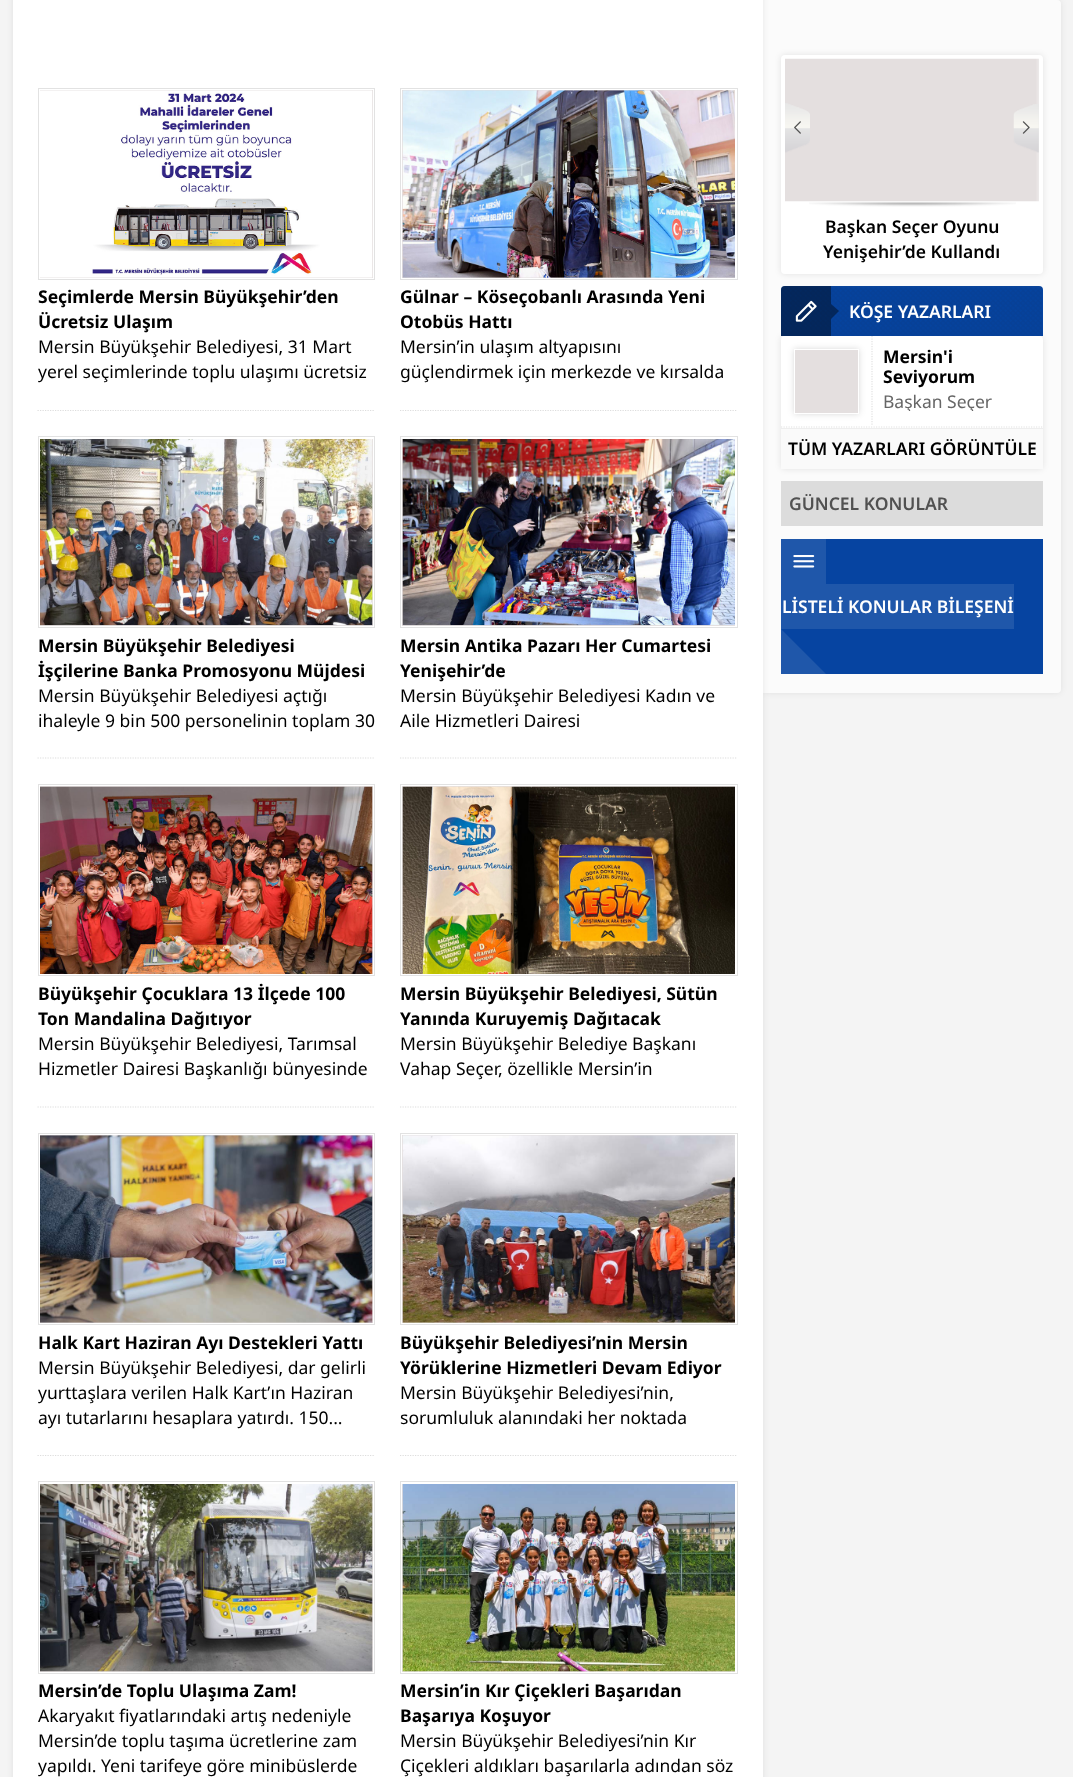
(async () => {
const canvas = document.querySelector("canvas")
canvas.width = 1073
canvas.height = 1777
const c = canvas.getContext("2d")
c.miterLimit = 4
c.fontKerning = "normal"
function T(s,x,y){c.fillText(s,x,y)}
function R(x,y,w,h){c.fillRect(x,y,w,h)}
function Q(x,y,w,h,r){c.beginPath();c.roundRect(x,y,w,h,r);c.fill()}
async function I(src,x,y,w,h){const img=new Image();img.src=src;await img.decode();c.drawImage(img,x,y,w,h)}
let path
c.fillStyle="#f4f4f4"
R(0,0,1073,1777)
c.fillStyle="#00000014"
c.filter="blur(3px)"
c.beginPath()
c.roundRect(763,0,298,693,4)
c.fill()
c.filter="none"
c.fillStyle="#fbfbfb"
c.beginPath()
c.roundRect(763,0,298,693,[0,4,4,0])
c.fill()
c.fillStyle="#00000014"
c.filter="blur(3px)"
c.beginPath()
c.roundRect(13,-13,750,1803,4)
c.fill()
c.filter="none"
c.fillStyle="#fff"
R(13,0,750,1777)
path = new Path2D("M37.5 410.5h337.5")
c.strokeStyle="#ddd"
c.lineWidth=1.2
c.setLineDash([1.25,1.25])
c.stroke(path)
c.strokeStyle="#e2e2e2"
c.lineWidth=1
c.setLineDash([])
c.strokeRect(38.5,88.5,336,191)
c.fillStyle="#e4dfdf"
R(40,90,333,188)
await I("1.png",40,90,333,188)
c.font="bold 17.5px Noto Sans"
c.fillStyle="#000"
T("Seçimlerde Mersin Büyükşehir’den",38,303)
T("Ücretsiz Ulaşım",38,328)
c.font="17.5px Noto Sans"
T("Mersin Büyükşehir Belediyesi, 31 Mart",38,353)
c.save()
c.beginPath()
c.rect(38,285,337,100)
c.clip()
T("yerel seçimlerinde toplu ulaşımı ücretsiz",38,378)
c.restore()
path = new Path2D("M400 410.5h337.5")
c.strokeStyle="#ddd"
c.lineWidth=1.2
c.setLineDash([1.25,1.25])
c.stroke(path)
c.strokeStyle="#e2e2e2"
c.lineWidth=1
c.setLineDash([])
c.strokeRect(400.5,88.5,337,191)
c.fillStyle="#e4dfdf"
R(402,90,333,188)
await I("2.png",402,90,333,188)
c.font="bold 17.5px Noto Sans"
c.fillStyle="#000"
T("Gülnar – Köseçobanlı Arasında Yeni",400,303)
T("Otobüs Hattı",400,328)
c.font="17.5px Noto Sans"
T("Mersin’in ulaşım altyapısını",400,353)
T("güçlendirmek için merkezde ve kırsalda",400,378)
path = new Path2D("M37.5 758h337.5")
c.strokeStyle="#ddd"
c.lineWidth=1.2
c.setLineDash([1.25,1.25])
c.stroke(path)
c.strokeStyle="#e2e2e2"
c.lineWidth=1
c.setLineDash([])
c.strokeRect(38.5,436.5,336,191)
c.fillStyle="#e4dfdf"
R(40,439,333,187)
await I("3.png",40,439,333,187)
c.font="bold 17.5px Noto Sans"
c.fillStyle="#000"
T("Mersin Büyükşehir Belediyesi",38,652)
T("İşçilerine Banka Promosyonu Müjdesi",38,677)
c.font="17.5px Noto Sans"
T("Mersin Büyükşehir Belediyesi açtığı",38,702)
T("ihaleyle 9 bin 500 personelinin toplam 30",38,727)
path = new Path2D("M400 758h337.5")
c.strokeStyle="#ddd"
c.lineWidth=1.2
c.setLineDash([1.25,1.25])
c.stroke(path)
c.strokeStyle="#e2e2e2"
c.lineWidth=1
c.setLineDash([])
c.strokeRect(400.5,436.5,337,191)
c.fillStyle="#e4dfdf"
R(402,439,333,187)
await I("4.png",402,439,333,187)
c.font="bold 17.5px Noto Sans"
c.fillStyle="#000"
T("Mersin Antika Pazarı Her Cumartesi",400,652)
T("Yenişehir’de",400,677)
c.font="17.5px Noto Sans"
T("Mersin Büyükşehir Belediyesi Kadın ve",400,702)
T("Aile Hizmetleri Dairesi",400,727)
path = new Path2D("M37.5 1107h337.5")
c.strokeStyle="#ddd"
c.lineWidth=1.2
c.setLineDash([1.25,1.25])
c.stroke(path)
c.strokeStyle="#e2e2e2"
c.lineWidth=1
c.setLineDash([])
c.strokeRect(38.5,784.5,336,191)
c.fillStyle="#e4dfdf"
R(40,786,333,188)
await I("5.png",40,786,333,188)
c.font="bold 17.5px Noto Sans"
c.fillStyle="#000"
T("Büyükşehir Çocuklara 13 İlçede 100",38,1000)
c.save()
c.beginPath()
c.rect(38,981,337,100)
c.clip()
T("Ton Mandalina Dağıtıyor",38,1025)
c.restore()
c.font="17.5px Noto Sans"
T("Mersin Büyükşehir Belediyesi, Tarımsal",38,1050)
T("Hizmetler Dairesi Başkanlığı bünyesinde",38,1075)
path = new Path2D("M400 1107h337.5")
c.strokeStyle="#ddd"
c.lineWidth=1.2
c.setLineDash([1.25,1.25])
c.stroke(path)
c.strokeStyle="#e2e2e2"
c.lineWidth=1
c.setLineDash([])
c.strokeRect(400.5,784.5,337,191)
c.fillStyle="#e4dfdf"
R(402,786,333,188)
await I("6.png",402,786,333,188)
c.font="bold 17.5px Noto Sans"
c.fillStyle="#000"
T("Mersin Büyükşehir Belediyesi, Sütün",400,1000)
T("Yanında Kuruyemiş Dağıtacak",400,1025)
c.font="17.5px Noto Sans"
T("Mersin Büyükşehir Belediye Başkanı",400,1050)
T("Vahap Seçer, özellikle Mersin’in",400,1075)
path = new Path2D("M37.5 1455.5h337.5")
c.strokeStyle="#ddd"
c.lineWidth=1.2
c.setLineDash([1.25,1.25])
c.stroke(path)
c.strokeStyle="#e2e2e2"
c.lineWidth=1
c.setLineDash([])
c.strokeRect(38.5,1133.5,336,191)
c.fillStyle="#e4dfdf"
R(40,1135,333,188)
await I("7.png",40,1135,333,188)
c.font="bold 17.5px Noto Sans"
c.fillStyle="#000"
T("Halk Kart Haziran Ayı Destekleri Yattı",38,1349)
c.font="17.5px Noto Sans"
T("Mersin Büyükşehir Belediyesi, dar gelirli",38,1374)
c.save()
c.beginPath()
c.rect(38,1330,337,100)
c.clip()
T("yurttaşlara verilen Halk Kart’ın Haziran",38,1399)
c.restore()
T("ayı tutarlarını hesaplara yatırdı. 150...",38,1424)
path = new Path2D("M400 1455.5h337.5")
c.strokeStyle="#ddd"
c.lineWidth=1.2
c.setLineDash([1.25,1.25])
c.stroke(path)
c.strokeStyle="#e2e2e2"
c.lineWidth=1
c.setLineDash([])
c.strokeRect(400.5,1133.5,337,191)
c.fillStyle="#e4dfdf"
R(402,1135,333,188)
await I("8.png",402,1135,333,188)
c.font="bold 17.5px Noto Sans"
c.fillStyle="#000"
T("Büyükşehir Belediyesi’nin Mersin",400,1349)
T("Yörüklerine Hizmetleri Devam Ediyor",400,1374)
c.font="17.5px Noto Sans"
T("Mersin Büyükşehir Belediyesi’nin,",400,1399)
T("sorumluluk alanındaki her noktada",400,1424)
c.strokeRect(38.5,1481.5,336,192)
c.fillStyle="#e4dfdf"
R(40,1484,333,188)
await I("9.png",40,1484,333,188)
c.font="bold 17.5px Noto Sans"
c.fillStyle="#000"
T("Mersin’de Toplu Ulaşıma Zam!",38,1697)
c.font="17.5px Noto Sans"
T("Akaryakıt fiyatlarındaki artış nedeniyle",38,1722)
T("Mersin’de toplu taşıma ücretlerine zam",38,1747)
c.save()
c.beginPath()
c.rect(38,1679,337,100)
c.clip()
T("yapıldı. Yeni tarifeye göre minibüslerde",38,1772)
c.restore()
c.strokeRect(400.5,1481.5,337,192)
c.fillStyle="#e4dfdf"
R(402,1484,333,188)
await I("10.png",402,1484,333,188)
c.font="bold 17.5px Noto Sans"
c.fillStyle="#000"
T("Mersin’in Kır Çiçekleri Başarıdan",400,1697)
T("Başarıya Koşuyor",400,1722)
c.font="17.5px Noto Sans"
T("Mersin Büyükşehir Belediyesi’nin Kır",400,1747)
T("Çiçekleri aldıkları başarılarla adından söz",400,1772)
c.fillStyle="#0000001a"
c.filter="blur(3px)"
c.beginPath()
c.roundRect(781,55,262,219,4)
c.fill()
c.filter="none"
c.fillStyle="#fff"
Q(781,55,262,219,4)
await I("16.png",785,58,254,144)
await I("11.png",785,103,25,50)
await I("12.png",794,121,7,13)
await I("13.png",1013,104,26,49)
await I("14.png",1022,121,8,13)
await I("15.png",809,202,207,5)
c.font="600 17.5px Noto Sans"
c.fillStyle="#000"
T("Başkan Seçer Oyunu",825,233)
T("Yenişehir’de Kullandı",823,258)
c.fillStyle="#0000001a"
c.filter="blur(3px)"
c.beginPath()
c.roundRect(781,336,262,133,4)
c.fill()
c.filter="none"
c.fillStyle="#0644a1"
c.beginPath()
c.roundRect(781,286,262,50,[4,4,0,0])
c.fill()
await I("17.png",781,286,261,50)
c.fillStyle="#00000066"
c.beginPath()
c.roundRect(781,286,50,50,[4,0,0,0])
c.fill()
await I("18.png",795,300,22,22)
path = new Path2D("M831 319v-15l8 7z")
c.fill(path)
c.fillStyle="#fff"
T("KÖŞE YAZARLARI",849,318)
Q(781,336,262,133,4)
path = new Path2D("M781 427h261.5")
c.lineWidth=1.2
c.setLineDash([1.25,1.25])
c.stroke(path)
path = new Path2D("M872 336v90")
c.stroke(path)
c.fillStyle="#00000026"
c.filter="blur(3px)"
c.beginPath()
c.rect(794,349,65,65)
c.fill()
c.filter="none"
c.strokeStyle="#fff"
c.lineWidth=1
c.setLineDash([])
c.strokeRect(794.5,349.5,64,64)
c.fillStyle="#e4dfdf"
R(795,350,63,63)
c.font="bold 17.5px Noto Sans"
c.fillStyle="#000"
T("Mersin'i",883,363)
T("Seviyorum",883,383)
c.save()
c.beginPath()
c.rect(883,346,150,65)
c.clip()
c.font="17.5px Noto Sans"
c.fillStyle="#666"
T("Başkan Seçer",883,408)
c.restore()
c.fillStyle="#fafafa"
R(781,429,262,40)
c.fillStyle="#eee"
R(781,428,262,1)
c.font="600 17.5px Noto Sans"
c.fillStyle="#000"
T("TÜM YAZARLARI GÖRÜNTÜLE",788,455)
c.fillStyle="#dcdcdc"
R(781,481,262,45)
c.fillStyle="#515151"
T("GÜNCEL KONULAR",789,510)
c.fillStyle="#0644a1"
R(781,539,262,135)
c.fillStyle="#1f57aa"
R(781,539,45,45)
await I("19.png",793,555,22,13)
R(781,584,233,45)
c.fillStyle="#fff"
T("LİSTELİ KONULAR BİLEŞENİ",782,613)
c.fillStyle="#1f57aa"
path = new Path2D("M826 674h-45v-45z")
c.fill(path)
})()
